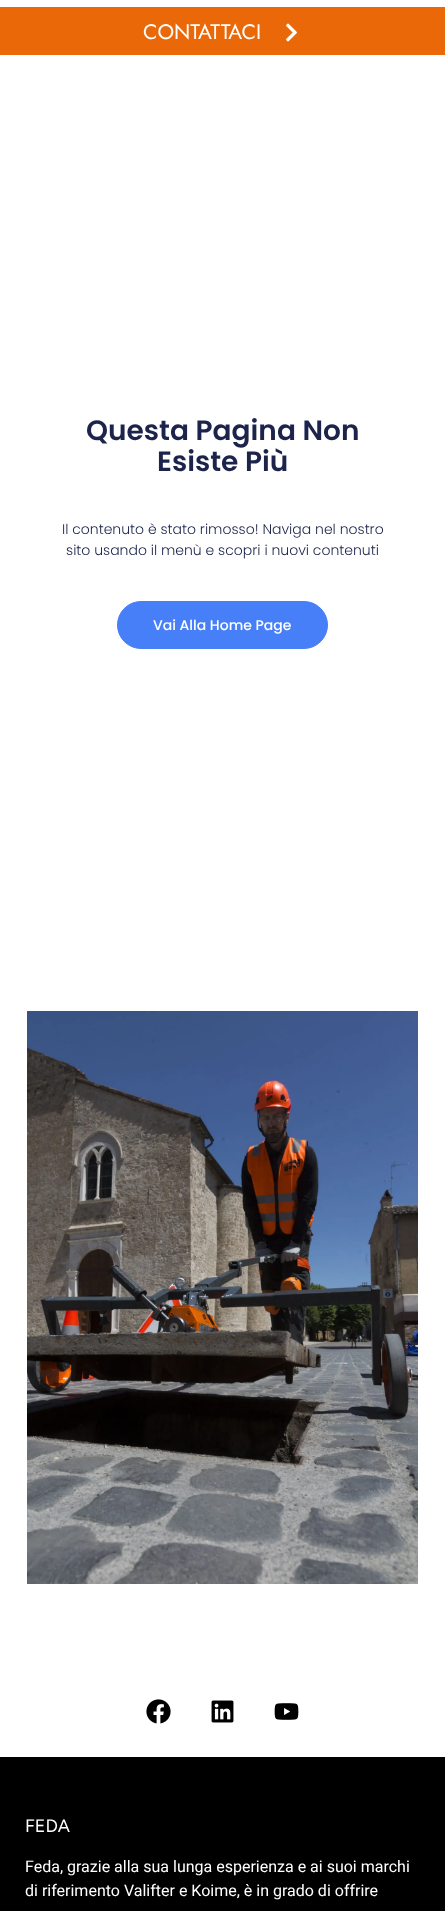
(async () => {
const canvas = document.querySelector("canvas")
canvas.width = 445
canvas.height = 1911
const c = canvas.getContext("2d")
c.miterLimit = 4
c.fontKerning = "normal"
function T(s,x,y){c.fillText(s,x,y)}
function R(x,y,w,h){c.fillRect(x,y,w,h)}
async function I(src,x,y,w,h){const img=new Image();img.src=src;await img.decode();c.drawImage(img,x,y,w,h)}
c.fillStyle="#fff"
R(0,0,445,1911)
c.fillStyle="#ea6808"
R(0,7,445,48)
c.font="21px Jost"
c.fillStyle="#fff"
T("CONTATTACI",143,39)
await I("1.png",286,23,11,19)
c.font="600 28px Poppins"
c.fillStyle="#1c244b"
T("Questa Pagina Non",86,440)
T("Esiste Più",157,471)
c.font="300 14px Poppins"
T("Il contenuto è stato rimosso! Naviga nel nostro",62,534)
T("sito usando il menù e scopri i nuovi contenuti",66,555)
c.fillStyle="#467ff7"
c.beginPath()
c.roundRect(117.5,601.5,210,47,23.5)
c.fill()
c.strokeStyle="#467ff7"
c.stroke()
c.font="500 14px Poppins"
c.fillStyle="#fff"
T("Vai Alla Home Page",153,630)
await I("2.png",27,1011,391,573)
await I("3.png",146,1699,25,25)
await I("4.png",211,1700,23,23)
await I("5.png",274,1703,25,17)
c.fillStyle="#000"
R(0,1757,445,154)
c.font="18px Figtree"
c.fillStyle="#fff"
T("FEDA",25,1832)
c.font="16px Roboto"
T("Feda, grazie alla sua lunga esperienza e ai suoi marchi",25,1872)
T("di riferimento Valifter e Koime, è in grado di offrire",25,1896)
})()
